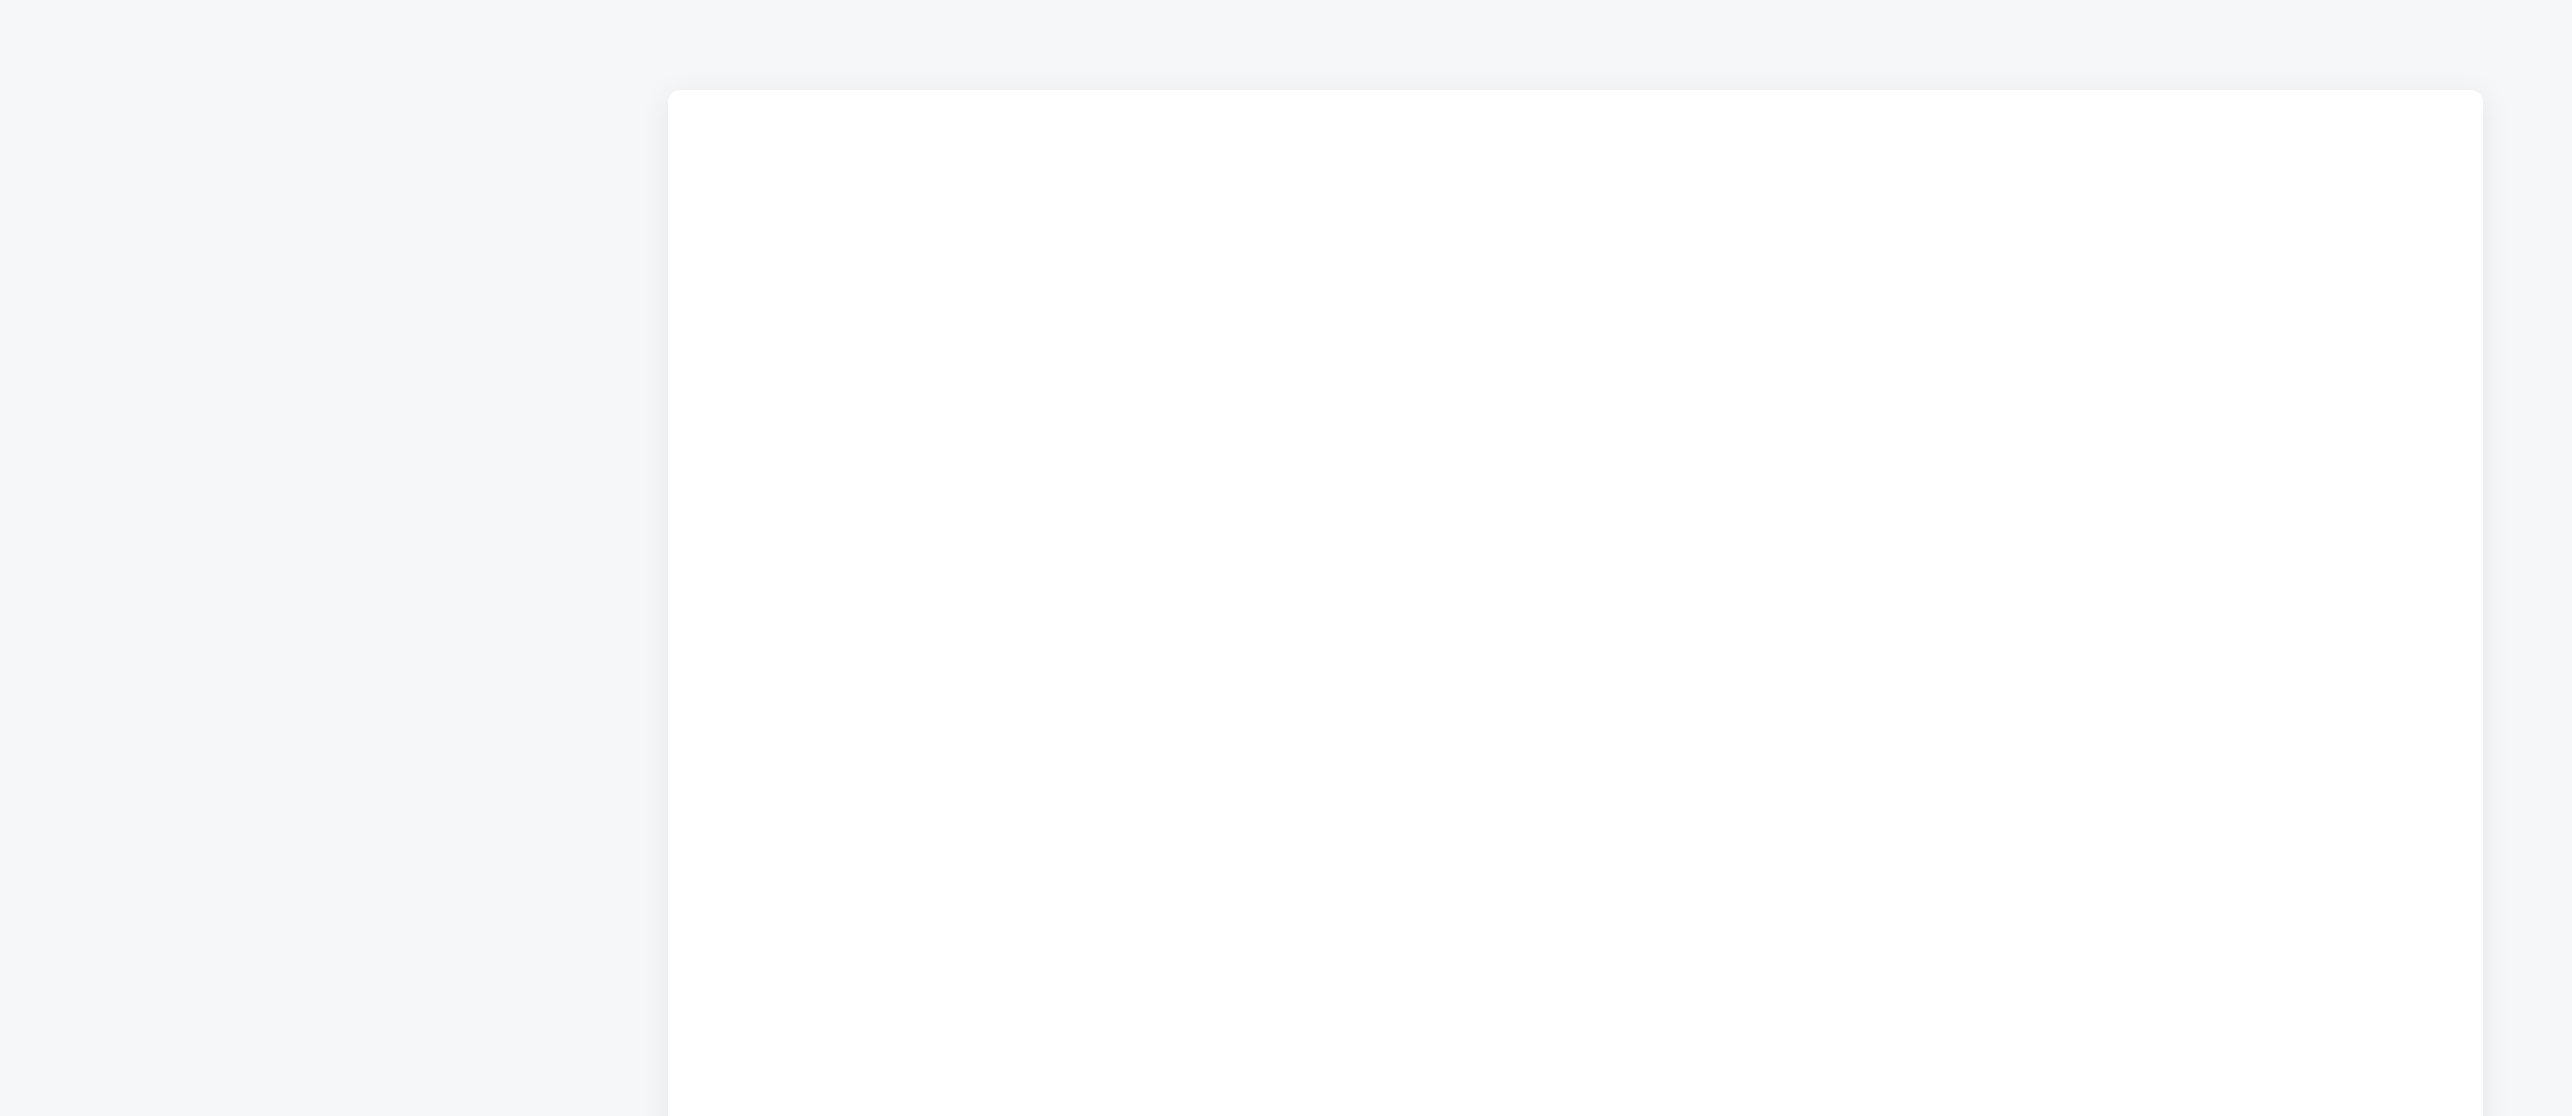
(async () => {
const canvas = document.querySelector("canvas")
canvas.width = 2572
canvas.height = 1116
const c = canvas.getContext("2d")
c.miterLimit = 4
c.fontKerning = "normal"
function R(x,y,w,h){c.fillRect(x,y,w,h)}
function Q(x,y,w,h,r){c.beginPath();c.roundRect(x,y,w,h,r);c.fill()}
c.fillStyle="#f6f7f8"
R(0,0,2572,1116)
c.fillStyle="#050a0f12"
c.filter="blur(13.5px)"
c.beginPath()
c.roundRect(668,95,1815,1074,12)
c.fill()
c.filter="none"
c.fillStyle="#fff"
Q(668,90,1815,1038,12)
})()
